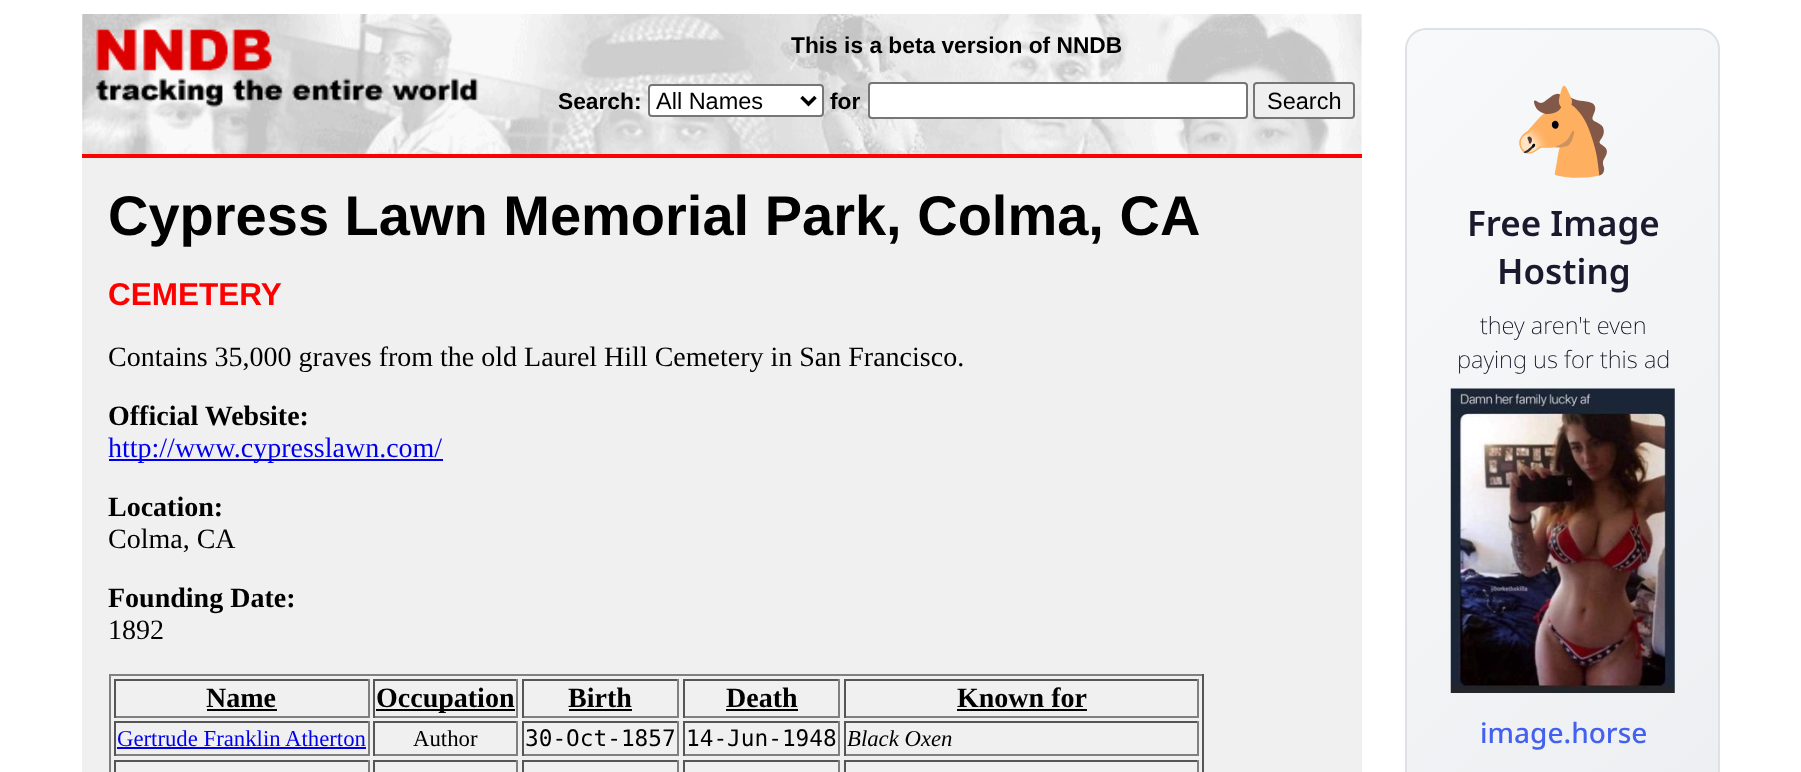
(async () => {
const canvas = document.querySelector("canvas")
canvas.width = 1801
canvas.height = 772
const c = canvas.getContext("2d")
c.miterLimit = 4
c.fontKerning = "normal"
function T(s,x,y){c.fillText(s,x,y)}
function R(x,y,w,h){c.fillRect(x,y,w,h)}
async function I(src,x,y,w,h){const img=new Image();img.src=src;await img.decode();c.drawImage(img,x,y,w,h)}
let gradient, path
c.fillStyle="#fff"
R(0,0,1801,772)
await I("1.png",82,14,1280,140)
await I("2.png",95,29,384,79)
c.font="bold 22.75px Liberation Sans"
c.fillStyle="#000"
T("This is a beta version of NNDB",791,53)
T("Search:",558,109)
c.fillStyle="#fff"
c.beginPath()
c.roundRect(649,85,174,31,3)
c.fill()
c.strokeStyle="#767676"
c.lineWidth=2
c.stroke()
path = new Path2D("M801.5 97l7 7l7-7")
c.strokeStyle="#000"
c.lineWidth=3.5
c.stroke(path)
c.font="23.5px Liberation Sans"
c.fillStyle="#000"
T("All Names",656,109)
c.font="bold 22.75px Liberation Sans"
T("for",830,109)
c.fillStyle="#fff"
c.beginPath()
c.roundRect(869,83,378,35,3)
c.fill()
c.strokeStyle="#767676"
c.lineWidth=2
c.stroke()
c.fillStyle="#efefef"
c.beginPath()
c.roundRect(1254,83,100,35,3)
c.fill()
c.stroke()
c.font="23.5px Liberation Sans"
c.fillStyle="#000"
T("Search",1267,109)
c.fillStyle="#f00"
R(82,154,1280,4)
c.fillStyle="#f0f0f0"
R(82,158,1280,614)
c.font="bold 56px Liberation Sans"
c.fillStyle="#000"
T("Cypress Lawn Memorial Park, Colma, CA",108,235)
c.font="bold 31.5px Liberation Sans"
c.fillStyle="#f00"
T("CEMETERY",108,305)
c.font="28px Liberation Serif"
c.fillStyle="#000"
T("Contains 35,000 graves from the old Laurel Hill Cemetery in San Francisco.",108,366)
c.font="bold 28px Liberation Serif"
T("Official Website:",108,425)
c.fillStyle="#00e"
R(109,459,334,2)
c.font="28px Liberation Serif"
T("http://www.cypresslawn.com/",108,457)
c.font="bold 28px Liberation Serif"
c.fillStyle="#000"
T("Location:",108,516)
c.font="28px Liberation Serif"
T("Colma, CA",108,548)
c.font="bold 28px Liberation Serif"
T("Founding Date:",108,607)
c.font="28px Liberation Serif"
T("1892",108,639)
c.fillStyle="#808080"
R(109,674,1095,2)
c.fillStyle="#555"
R(1202,674,2,98)
c.fillStyle="#808080"
R(109,674,2,98)
c.fillStyle="#555"
R(114,679,255,2)
c.fillStyle="#808080"
R(368,679,2,39)
R(114,716,255,2)
c.fillStyle="#555"
R(114,679,2,39)
c.font="bold 28px Liberation Serif"
c.fillStyle="#000"
T("Name",206,707)
R(207,709,70,2)
c.fillStyle="#555"
R(373,679,145,2)
c.fillStyle="#808080"
R(516,679,2,39)
R(373,716,145,2)
c.fillStyle="#555"
R(373,679,2,39)
c.fillStyle="#000"
R(376,709,139,2)
T("Occupation",376,707)
c.fillStyle="#555"
R(522,679,157,2)
c.fillStyle="#808080"
R(677,679,2,39)
R(522,716,157,2)
c.fillStyle="#555"
R(522,679,2,39)
c.fillStyle="#000"
T("Birth",568,707)
R(569,709,63,2)
c.fillStyle="#555"
R(683,679,157,2)
c.fillStyle="#808080"
R(838,679,2,39)
R(683,716,157,2)
c.fillStyle="#555"
R(683,679,2,39)
c.fillStyle="#000"
T("Death",726,707)
R(726,709,72,2)
c.fillStyle="#555"
R(844,679,355,2)
c.fillStyle="#808080"
R(1197,679,2,39)
R(844,716,355,2)
c.fillStyle="#555"
R(844,679,2,39)
c.fillStyle="#000"
T("Known for",957,707)
R(957,709,130,2)
c.fillStyle="#555"
R(114,721,255,2)
c.fillStyle="#808080"
R(368,721,2,35)
R(114,754,255,2)
c.fillStyle="#555"
R(114,721,2,35)
c.font="22.75px Liberation Serif"
c.fillStyle="#00e"
T("Gertrude Franklin Atherton",117,746)
R(117,747,249,2)
c.fillStyle="#555"
R(373,721,145,2)
c.fillStyle="#808080"
R(516,721,2,35)
R(373,754,145,2)
c.fillStyle="#555"
R(373,721,2,35)
c.fillStyle="#000"
T("Author",413,746)
c.fillStyle="#555"
R(522,721,157,2)
c.fillStyle="#808080"
R(677,721,2,35)
R(522,754,157,2)
c.fillStyle="#555"
R(522,721,2,35)
c.font="22.75px DejaVu Sans Mono"
c.fillStyle="#000"
T("30-Oct-1857",525,746)
c.fillStyle="#555"
R(683,721,157,2)
c.fillStyle="#808080"
R(838,721,2,35)
R(683,754,157,2)
c.fillStyle="#555"
R(683,721,2,35)
c.fillStyle="#000"
T("14-Jun-1948",686,746)
c.fillStyle="#555"
R(844,721,355,2)
c.fillStyle="#808080"
R(1197,721,2,35)
R(844,754,355,2)
c.fillStyle="#555"
R(844,721,2,35)
c.font="italic 22.75px Liberation Serif"
c.fillStyle="#000"
T("Black Oxen",847,746)
c.fillStyle="#555"
R(114,760,255,2)
c.fillStyle="#808080"
R(368,760,2,12)
c.fillStyle="#555"
R(114,760,2,12)
R(373,760,145,2)
c.fillStyle="#808080"
R(516,760,2,12)
c.fillStyle="#555"
R(373,760,2,12)
R(522,760,157,2)
c.fillStyle="#808080"
R(677,760,2,12)
c.fillStyle="#555"
R(522,760,2,12)
R(683,760,157,2)
c.fillStyle="#808080"
R(838,760,2,12)
c.fillStyle="#555"
R(683,760,2,12)
R(844,760,355,2)
c.fillStyle="#808080"
R(1197,760,2,12)
c.fillStyle="#555"
R(844,760,2,12)
c.save()
c.beginPath()
c.roundRect(1405,28,315,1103,21)
c.clip()
gradient = c.createLinearGradient(1210,227,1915,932)
gradient.addColorStop(0,"#f8f9fa")
gradient.addColorStop(1,"#e9ecef")
c.fillStyle = gradient
R(1407,30,312,742)
c.restore()
c.beginPath()
c.roundRect(1406,29,313,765,20)
c.strokeStyle="#dee2e6"
c.stroke()
c.font="84px Noto Color Emoji"
c.fillStyle="#00e"
T("🐴",1511,161)
c.font="600 35px Noto Sans"
c.fillStyle="#1a1a2e"
T("Free Image",1467,236)
T("Hosting",1497,284)
c.font="200 23.75px Noto Sans"
c.fillStyle="#0a0a1e"
T("they aren't even",1480,334)
T("paying us for this ad",1457,368)
await I("3.png",1450,388,225,305)
c.font="500 28px Noto Sans"
c.fillStyle="#4361ee"
T("image.horse",1480,743)
})()
